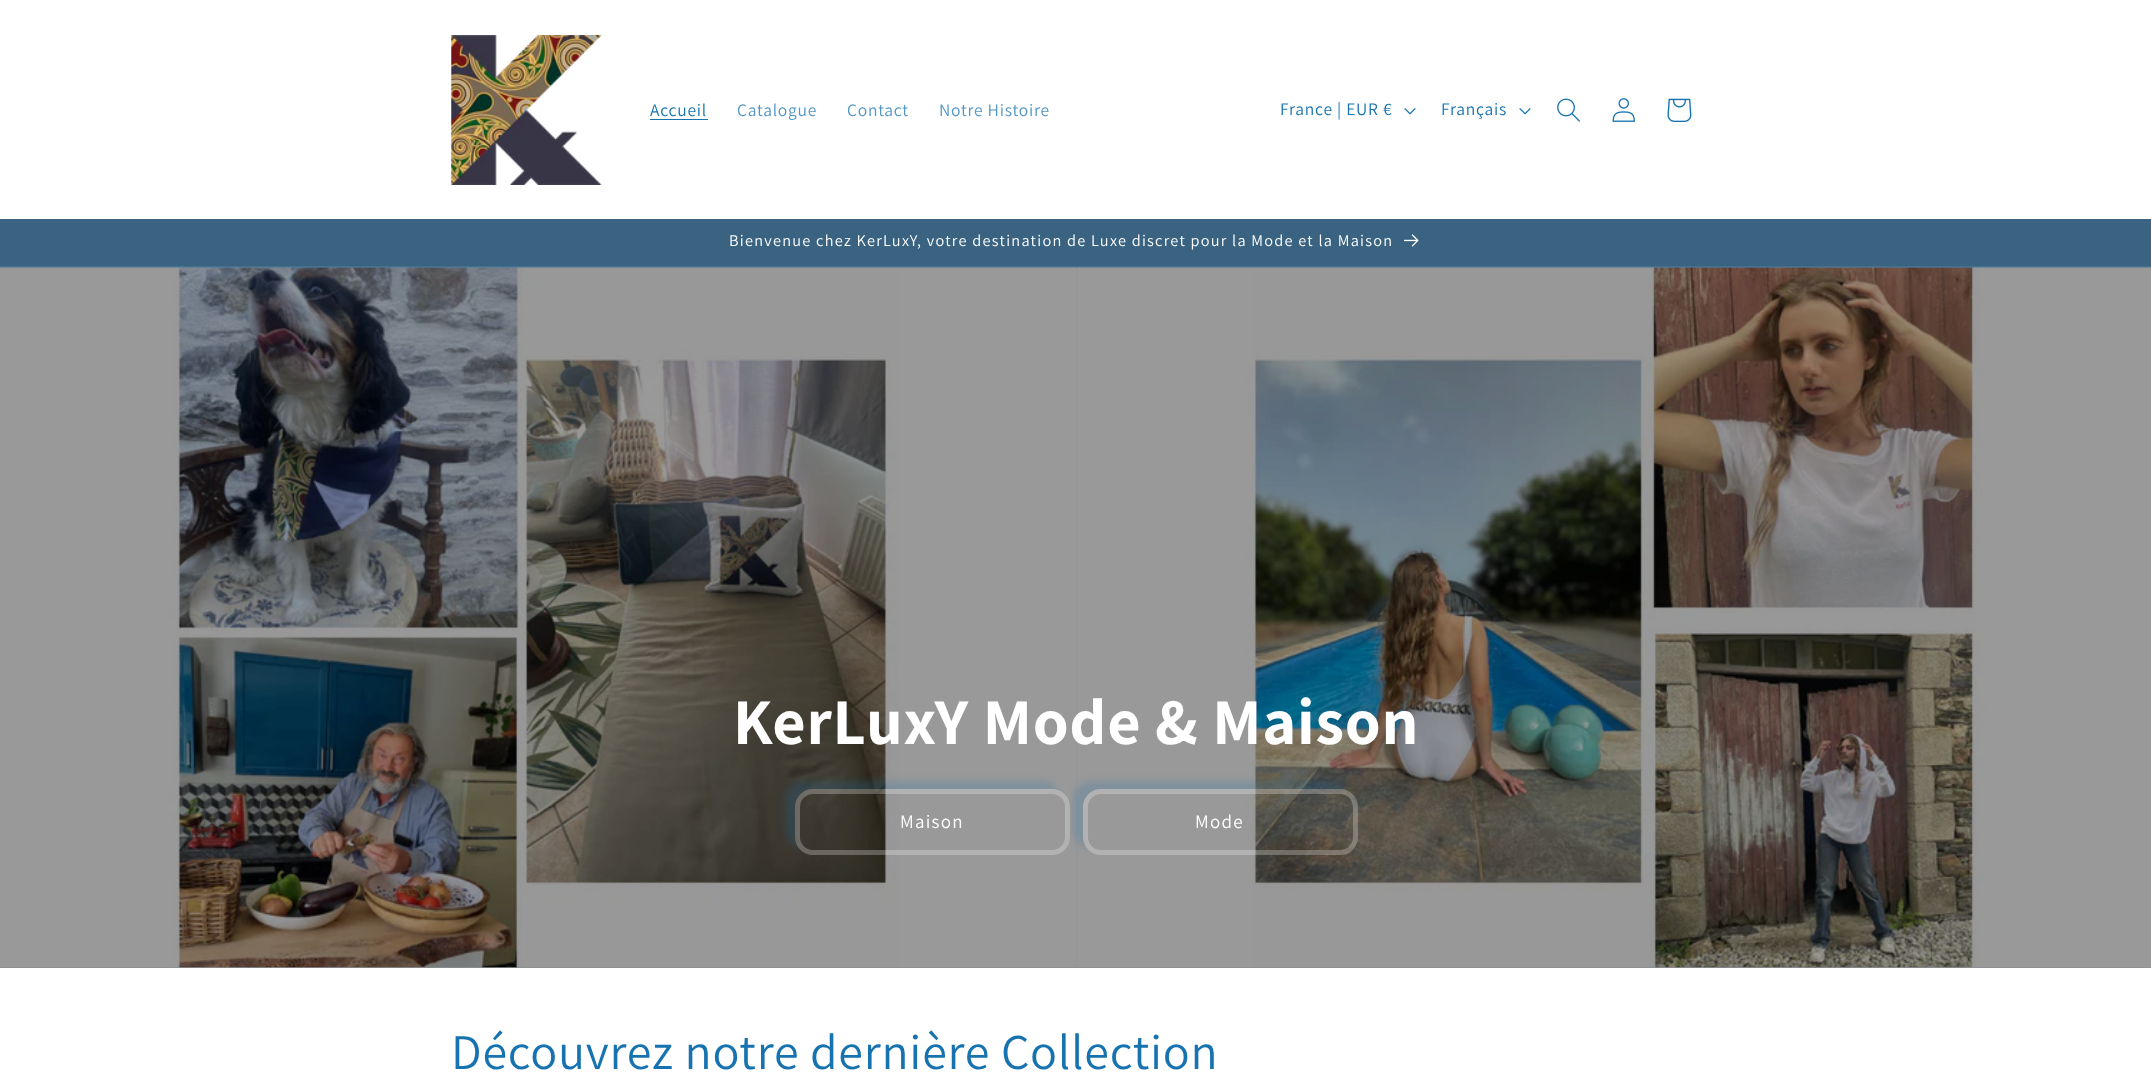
(async () => {
const canvas = document.querySelector("canvas")
canvas.width = 2151
canvas.height = 1075
const c = canvas.getContext("2d")
c.miterLimit = 4
c.fontKerning = "normal"
function T(s,x,y){c.fillText(s,x,y)}
function R(x,y,w,h){c.fillRect(x,y,w,h)}
async function I(src,x,y,w,h){const img=new Image();img.src=src;await img.decode();c.drawImage(img,x,y,w,h)}
let path
c.fillStyle="#fff"
R(0,0,2151,1075)
await I("1.png",451,35,151,150)
c.letterSpacing="0.75px"
c.font="17.5px Assistant"
c.fillStyle="#1773b0"
T("Accueil",650,116)
R(650,119,58,1)
c.fillStyle="#5196c4"
T("Catalogue",737,116)
T("Contact",847,116)
T("Notre Histoire",939,116)
c.fillStyle="#1773b0"
T("France | EUR €",1280,115)
await I("2.png",1404,108,12,7)
T("Français",1441,115)
await I("2.png",1519,108,12,7)
await I("3.png",1557,98,23,24)
await I("4.png",1612,98,23,24)
await I("5.png",1667,98,25,24)
c.fillStyle="#396380"
R(0,219,2151,49)
c.fillStyle="#496f8a"
R(0,266,2151,1)
c.letterSpacing="1.25px"
c.font="16.25px Assistant"
c.fillStyle="#fff"
T("Bienvenue chez KerLuxY, votre destination de Luxe discret pour la Mode et la Maison",729,246)
await I("6.png",1404,234,15,13)
c.fillStyle="#8c9195"
R(0,967,1076,1)
await I("7.png",0,267,1076,701)
R(1076,268,1075,700)
await I("8.png",1076,267,1075,701)
c.letterSpacing="0.75px"
c.font="bold 65px Assistant"
c.fillStyle="#fff"
T("KerLuxY Mode & Maison",733,744)
c.save()
path = new Path2D("M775 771h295v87h-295zm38 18h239c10 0 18 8 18 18v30c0 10-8 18-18 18h-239c-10 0-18-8-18-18v-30c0-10 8-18 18-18z")
c.clip(path,"evenodd")
c.fillStyle="#1773b033"
c.filter="blur(3px)"
c.beginPath()
c.roundRect(785,781,275,67,18)
c.fill()
c.filter="none"
c.restore()
c.save()
path = new Path2D("M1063 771h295v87h-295zm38 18h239c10 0 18 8 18 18v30c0 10-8 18-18 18h-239c-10 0-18-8-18-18v-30c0-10 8-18 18-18z")
c.clip(path,"evenodd")
c.fillStyle="#1773b033"
c.filter="blur(3px)"
c.beginPath()
c.roundRect(1073,781,275,67,18)
c.fill()
c.filter="none"
c.restore()
c.beginPath()
c.roundRect(797.5,791.5,270,61,15.5)
c.strokeStyle="#ffffff40"
c.lineWidth=5
c.stroke()
c.letterSpacing="1.25px"
c.font="19px Assistant"
T("Maison",900,828)
c.beginPath()
c.roundRect(1085.5,791.5,270,61,15.5)
c.stroke()
T("Mode",1195,828)
c.letterSpacing="0.75px"
c.font="50px Assistant"
c.fillStyle="#1773b0"
T("Découvrez notre dernière Collection",451,1069)
})()
